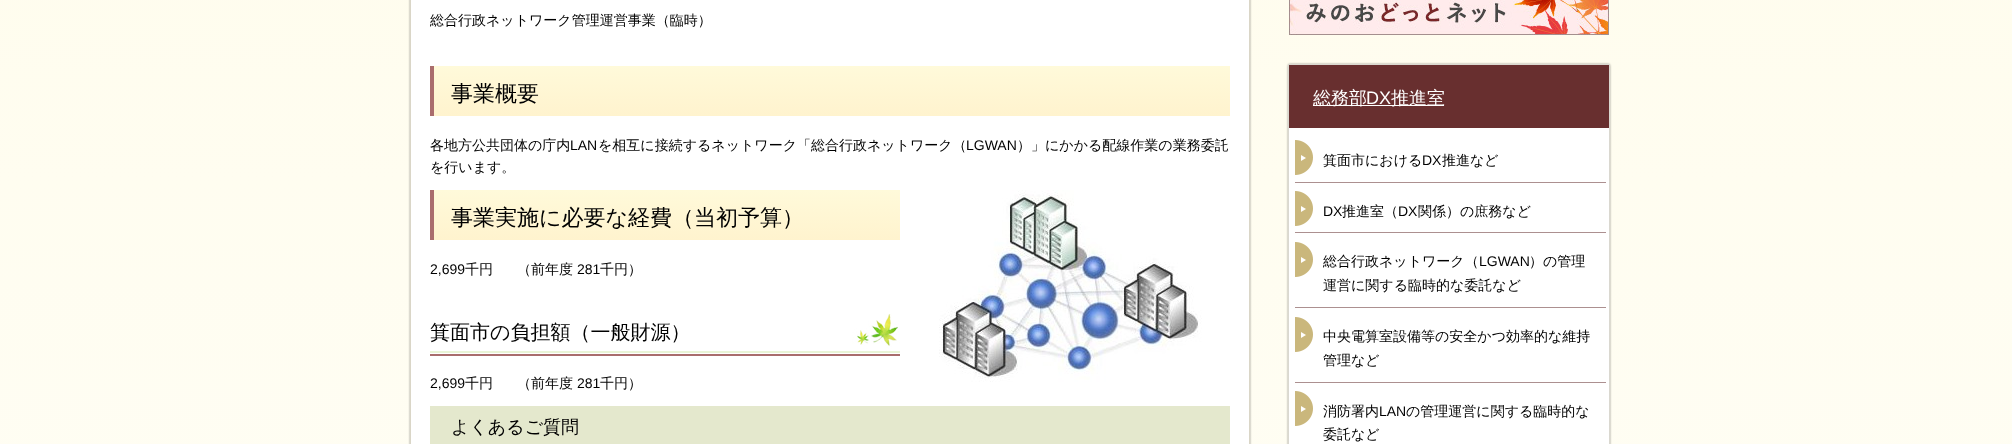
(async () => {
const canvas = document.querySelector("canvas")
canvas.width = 2012
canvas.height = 444
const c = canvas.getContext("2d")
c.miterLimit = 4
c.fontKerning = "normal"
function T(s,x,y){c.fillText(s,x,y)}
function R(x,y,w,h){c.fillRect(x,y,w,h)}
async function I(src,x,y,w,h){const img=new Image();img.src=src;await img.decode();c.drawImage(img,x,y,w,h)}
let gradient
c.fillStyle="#fff"
R(0,0,2012,444)
gradient = c.createLinearGradient(1006,-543,1006,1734)
gradient.addColorStop(0,"#fffce9")
gradient.addColorStop(1,"#fff")
c.fillStyle = gradient
R(0,0,2012,444)
c.fillStyle="#00000066"
c.filter="blur(1px)"
c.beginPath()
c.roundRect(410,-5,840,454,2)
c.fill()
c.filter="none"
c.fillStyle="#fff"
c.beginPath()
c.rect(410.5,-.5,839,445)
c.fill()
c.strokeStyle="#dad6c7"
c.stroke()
c.font="500 14px WenQuanYi Zen Hei"
c.fillStyle="#000"
T("総合行政ネットワーク管理運営事業（臨時）",430,25)
gradient = c.createLinearGradient(832,66,832,116)
gradient.addColorStop(0,"#fffada")
gradient.addColorStop(1,"#fff3ce")
c.fillStyle = gradient
R(434,66,796,50)
c.fillStyle="#aa6d6d"
R(430,66,4,50)
c.font="500 22px WenQuanYi Zen Hei"
c.fillStyle="#000"
T("事業概要",451,101)
c.font="500 14px WenQuanYi Zen Hei"
T("各地方公共団体の庁内",430,150)
c.font="14px Liberation Sans"
T("LAN",570,150)
c.font="500 14px WenQuanYi Zen Hei"
T("を相互に接続するネットワーク「総合行政ネットワーク（",598,150)
c.font="14px Liberation Sans"
T("LGWAN",966,150)
c.font="500 14px WenQuanYi Zen Hei"
T("）」にかかる配線作業の業務委託",1017,150)
T("を行います。",430,172)
gradient = c.createLinearGradient(667,190,667,240)
gradient.addColorStop(0,"#fffada")
gradient.addColorStop(1,"#fff3ce")
c.fillStyle = gradient
R(434,190,466,50)
c.fillStyle="#aa6d6d"
R(430,190,4,50)
c.font="500 22px WenQuanYi Zen Hei"
c.fillStyle="#000"
T("事業実施に必要な経費（当初予算）",451,225)
c.font="14px Liberation Sans"
T("2,699",430,274)
c.font="500 14px WenQuanYi Zen Hei"
T("千円",465,274)
T("（前年度",517,274)
c.font="14px Liberation Sans"
T("281",577,274)
c.font="500 14px WenQuanYi Zen Hei"
T("千円）",600,274)
await I("1.png",430,313,470,43)
c.font="500 20px WenQuanYi Zen Hei"
T("箕面市の負担額（一般財源）",430,339)
c.font="14px Liberation Sans"
T("2,699",430,388)
c.font="500 14px WenQuanYi Zen Hei"
T("千円",465,388)
T("（前年度",517,388)
c.font="14px Liberation Sans"
T("281",577,388)
c.font="500 14px WenQuanYi Zen Hei"
T("千円）",600,388)
await I("2.png",939,190,263,192)
c.fillStyle="#e4e8cd"
R(430,406,800,38)
c.font="500 18px WenQuanYi Zen Hei"
c.fillStyle="#000"
T("よくあるご質問",451,433)
await I("3.png",1289,0,320,35)
c.fillStyle="#00000066"
c.filter="blur(1px)"
c.beginPath()
c.roundRect(1288,64,322,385,2)
c.fill()
c.filter="none"
c.fillStyle="#fff"
c.beginPath()
c.roundRect(1288.5,64.5,321,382,1.5)
c.fill()
c.strokeStyle="#dad8d0"
c.stroke()
c.fillStyle="#682f2f"
R(1289,65,320,63)
c.fillStyle="#fff"
R(1313,105,131,1)
T("総務部",1313,104)
c.font="18px Liberation Sans"
T("DX",1366,104)
c.font="500 18px WenQuanYi Zen Hei"
T("推進室",1391,104)
c.fillStyle="#ac9090"
R(1295,182,311,1)
await I("4.png",1295,140,18,35)
c.font="500 14px WenQuanYi Zen Hei"
c.fillStyle="#000"
T("箕面市における",1323,165)
c.font="14px Liberation Sans"
T("DX",1422,165)
c.font="500 14px WenQuanYi Zen Hei"
T("推進など",1442,165)
c.fillStyle="#ac9090"
R(1295,232,311,1)
await I("4.png",1295,191,18,35)
c.font="14px Liberation Sans"
c.fillStyle="#000"
T("DX",1323,216)
c.font="500 14px WenQuanYi Zen Hei"
T("推進室（",1342,216)
c.font="14px Liberation Sans"
T("DX",1398,216)
c.font="500 14px WenQuanYi Zen Hei"
T("関係）の庶務など",1418,216)
c.fillStyle="#ac9090"
R(1295,307,311,1)
await I("4.png",1295,242,18,35)
c.fillStyle="#000"
T("総合行政ネットワーク（",1323,266)
c.font="14px Liberation Sans"
T("LGWAN",1479,266)
c.font="500 14px WenQuanYi Zen Hei"
T("）の管理",1529,266)
T("運営に関する臨時的な委託など",1323,290)
c.fillStyle="#ac9090"
R(1295,382,311,1)
await I("4.png",1295,317,18,35)
c.fillStyle="#000"
T("中央電算室設備等の安全かつ効率的な維持",1323,341)
T("管理など",1323,365)
await I("4.png",1295,391,18,35)
T("消防署内",1323,416)
c.font="14px Liberation Sans"
T("LAN",1379,416)
c.font="500 14px WenQuanYi Zen Hei"
T("の管理運営に関する臨時的な",1406,416)
T("委託など",1323,439)
})()
